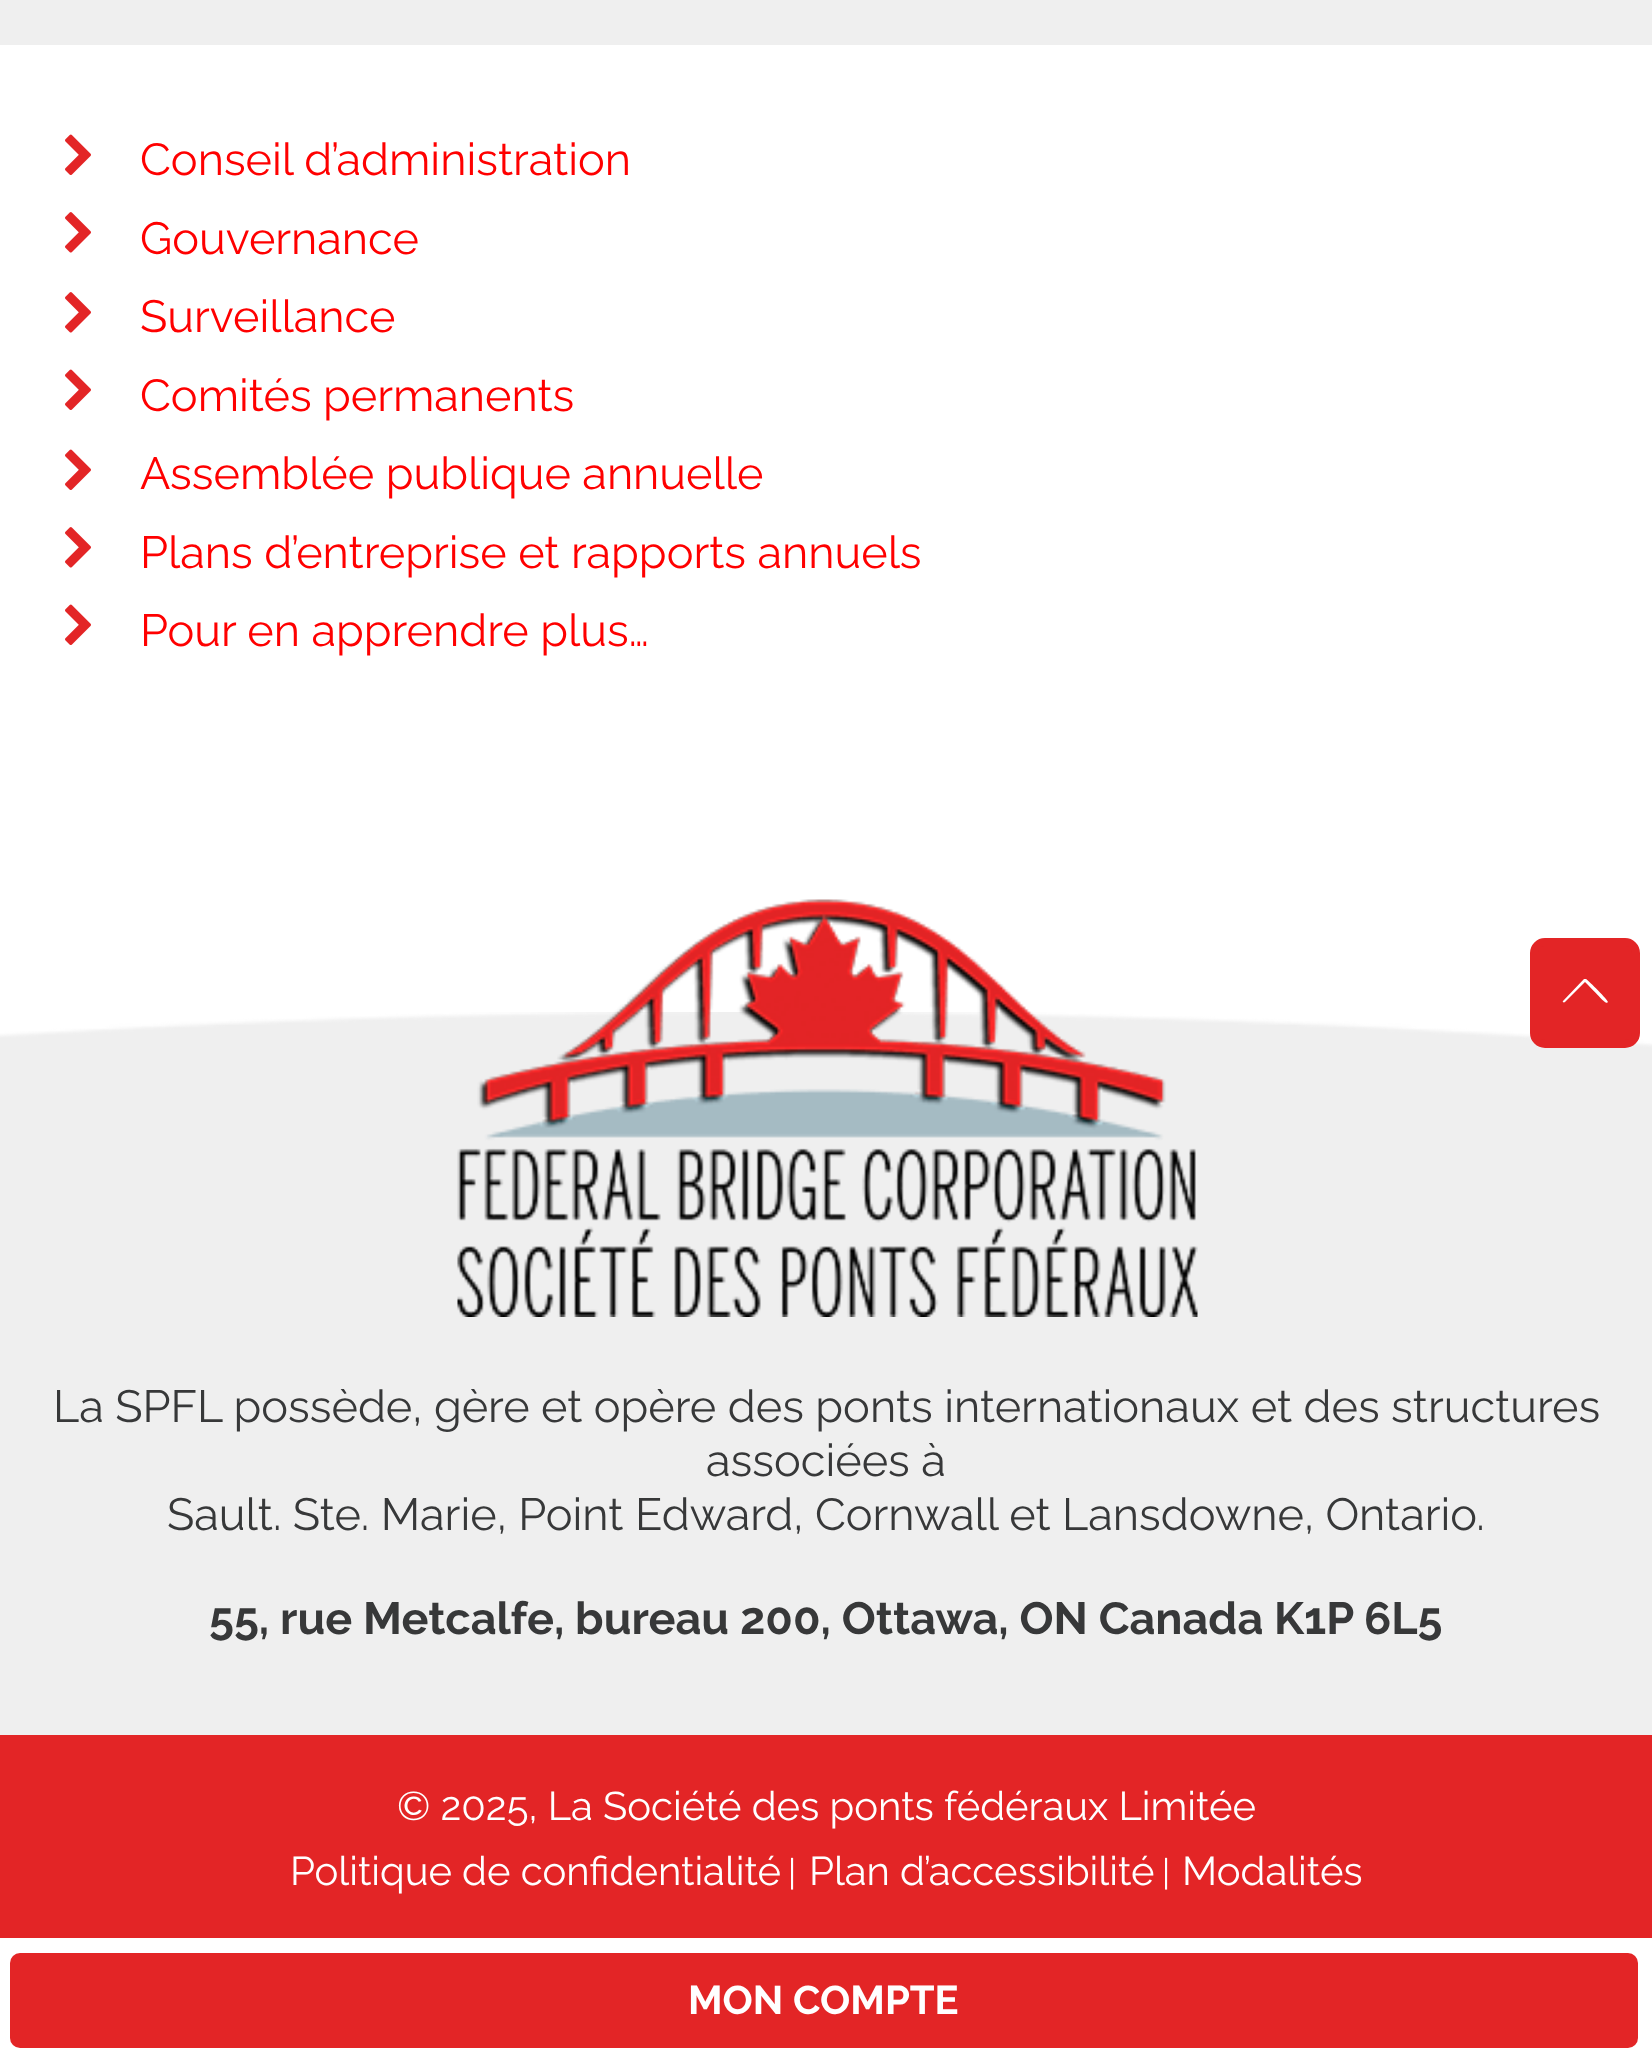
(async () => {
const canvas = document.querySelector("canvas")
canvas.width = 1652
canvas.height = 2061
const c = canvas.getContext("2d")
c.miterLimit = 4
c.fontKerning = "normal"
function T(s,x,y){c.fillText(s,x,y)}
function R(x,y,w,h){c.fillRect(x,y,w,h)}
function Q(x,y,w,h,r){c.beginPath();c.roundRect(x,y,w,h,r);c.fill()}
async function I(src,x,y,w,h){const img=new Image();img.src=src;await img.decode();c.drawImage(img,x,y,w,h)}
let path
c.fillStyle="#fff"
R(0,0,1652,2061)
c.fillStyle="#efefef"
R(0,0,1652,45)
await I("1.png",65,134,26,41)
c.font="45px Raleway"
c.fillStyle="#f00"
T("Conseil d’administration",140,175)
await I("2.png",65,212,26,41)
T("Gouvernance",140,254)
await I("2.png",65,292,26,41)
T("Surveillance",140,332)
await I("1.png",65,369,26,41)
T("Comités",140,411)
T("permanents",323,411)
await I("1.png",65,449,26,41)
T("Assemblée publique annuelle",140,489)
await I("2.png",65,527,26,41)
T("Plans d’entreprise et rapports annuels",140,568)
await I("1.png",65,604,26,41)
T("Pour en apprendre plus…",140,646)
await I("3.png",0,1012,1652,723)
await I("4.png",457,899,741,418)
c.fillStyle="#e32526"
c.beginPath()
c.roundRect(1534,942,102,102,11)
c.fill()
c.strokeStyle="#e32526"
c.lineWidth=8
c.stroke()
c.fillStyle="#fff"
path = new Path2D("M1565 1002c-1 1-3 0-2-1l21-22c1 0 1 0 2 0c3 2 22 21 22 23c-2 3-6-3-23-20z")
c.fill(path)
c.fillStyle="#373839"
T("La SPFL possède, gère et opère des ponts internationaux et des structures",53,1422)
T("associées à",706,1476)
T("Sault. Ste. Marie, Point Edward, Cornwall et Lansdowne, Ontario.",167,1530)
c.font="bold 45px Raleway"
T("55, rue Metcalfe, bureau 200, Ottawa, ON Canada K1P 6L5",209,1634)
c.fillStyle="#e32526"
R(0,1735,1652,203)
c.font="40px Raleway"
c.fillStyle="#fff"
T("© 2025, La Société des ponts fédéraux Limitée",397,1820)
T("Politique de confidentialité",290,1885)
c.font="35px Raleway"
T("|",788,1885)
c.font="40px Raleway"
T("Plan d’accessibilité",809,1885)
c.font="35px Raleway"
T("|",1162,1885)
c.font="40px Raleway"
T("Modalités",1182,1885)
c.fillStyle="#e32526"
Q(10,1953,1628,95,10)
c.font="bold 40px Raleway"
c.fillStyle="#fff"
T("MON COMPTE",688,2014)
})()
